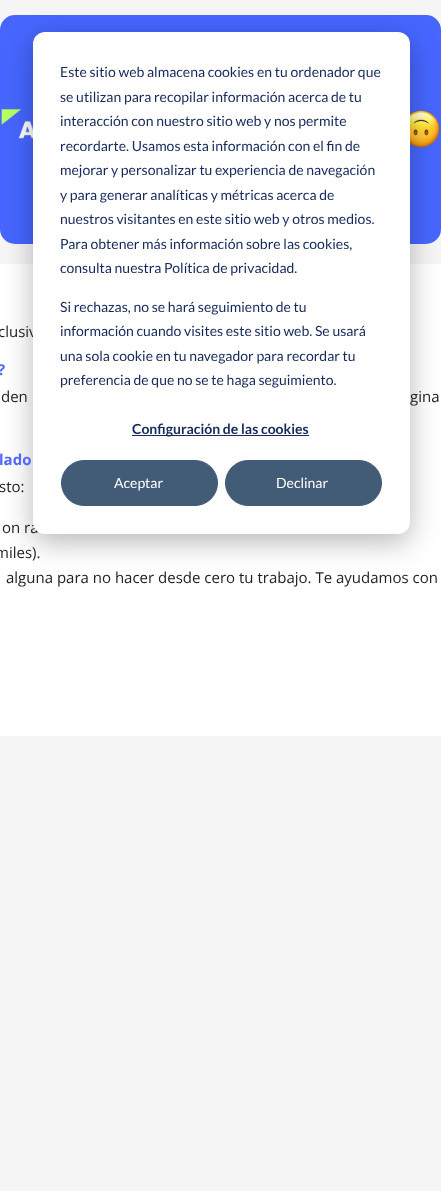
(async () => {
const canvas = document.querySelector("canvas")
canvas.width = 441
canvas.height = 1191
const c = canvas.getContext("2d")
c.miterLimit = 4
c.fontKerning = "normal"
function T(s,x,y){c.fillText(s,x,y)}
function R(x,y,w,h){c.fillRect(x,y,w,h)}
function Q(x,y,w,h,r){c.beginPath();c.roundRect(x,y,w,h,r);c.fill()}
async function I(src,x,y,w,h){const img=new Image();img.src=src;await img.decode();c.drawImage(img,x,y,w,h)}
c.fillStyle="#f5f5f5"
R(0,0,441,1191)
c.fillStyle="#4666ff"
Q(0,15,441,229,15)
await I("1.png",1,108,32,31)
await I("2.png",410,110,30,38)
c.fillStyle="#fff"
R(0,264,441,472)
c.fillStyle="#00000047"
c.filter="blur(14px)"
c.beginPath()
c.roundRect(33,40,377,502,12)
c.fill()
c.filter="none"
c.font="15px Open Sans"
c.fillStyle="#222"
T("clusiv",-2,337)
T("gina",410,402)
T("on ra",2,533)
c.fillStyle="#fff"
Q(33,32,377,502,12)
c.font="14px Lato"
c.fillStyle="#15295a"
T("Este sitio web almacena cookies en tu ordenador que",60,77)
T("se utilizan para recopilar información acerca de tu",60,102)
T("interacción con nuestro sitio web y nos permite",60,126)
T("recordarte. Usamos esta información con el fin de",60,151)
T("mejorar y personalizar tu experiencia de navegación",60,175)
T("y para generar analíticas y métricas acerca de",60,200)
T("nuestros visitantes en este sitio web y otros medios.",60,224)
T("Para obtener más información sobre las cookies,",60,249)
T("consulta nuestra Política de privacidad.",60,273)
T("Si rechazas, no se hará seguimiento de tu",60,312)
T("información cuando visites este sitio web. Se usará",60,336)
T("una sola cookie en tu navegador para recordar tu",60,361)
T("preferencia de que no se te haga seguimiento.",60,385)
R(132,435,177,1)
c.font="bold 14px Lato"
T("Configuración de las cookies",132,434)
c.fillStyle="#425b76"
c.beginPath()
c.roundRect(61.5,460.5,156,45,22.5)
c.fill()
c.strokeStyle="#425b76"
c.stroke()
c.font="14px Lato"
c.fillStyle="#fff"
T("Aceptar",114,488)
c.fillStyle="#425b76"
c.beginPath()
c.roundRect(225.5,460.5,156,45,22.5)
c.fill()
c.stroke()
c.fillStyle="#fff"
T("Declinar",276,488)
c.font="bold 15px Open Sans"
c.fillStyle="#5266f9"
T("?",-2,375)
c.font="15px Open Sans"
c.fillStyle="#222"
T("den",1,402)
c.font="bold 15px Open Sans"
c.fillStyle="#5266f9"
T("lado",-1,465)
c.font="15px Open Sans"
c.fillStyle="#222"
T("sto:",-1,492)
T("miles).",-5,558)
T("alguna para no hacer desde cero tu trabajo. Te ayudamos con",6,583)
})()
